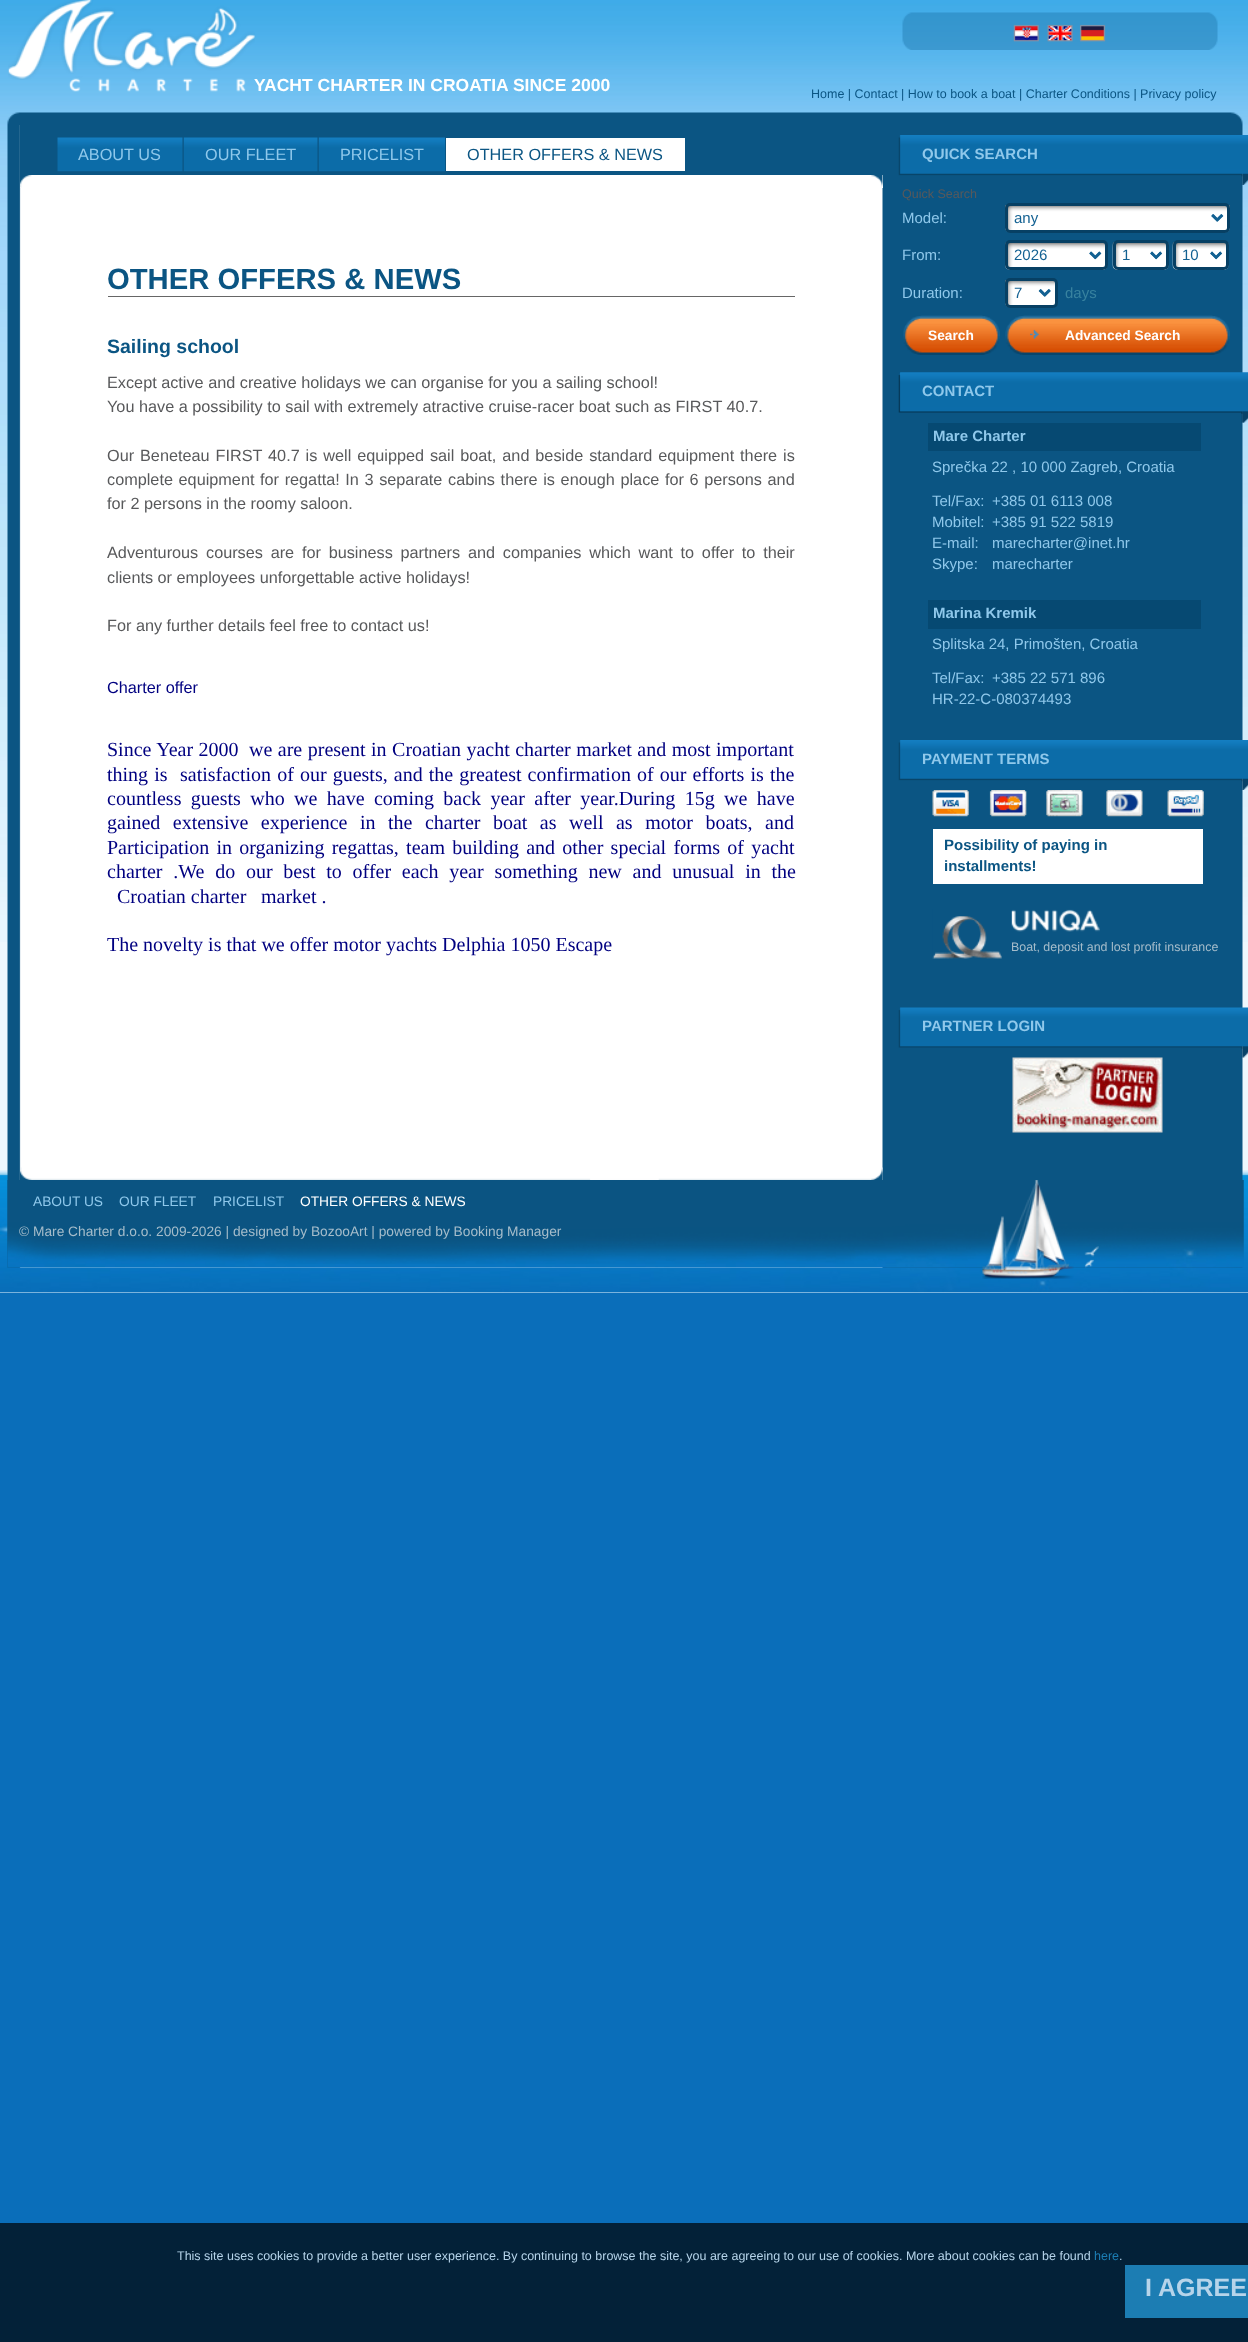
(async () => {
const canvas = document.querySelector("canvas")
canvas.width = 1248
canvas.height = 2342
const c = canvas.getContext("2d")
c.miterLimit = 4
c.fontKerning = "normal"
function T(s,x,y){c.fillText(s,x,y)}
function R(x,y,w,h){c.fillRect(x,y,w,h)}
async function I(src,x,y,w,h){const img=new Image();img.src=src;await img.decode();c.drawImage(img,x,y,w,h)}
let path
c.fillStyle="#0a6eba"
R(0,0,1248,2342)
c.fillStyle="#eef8fe"
R(0,942,1248,351)
await I("1.png",0,0,1248,942)
await I("2.png",0,1170,1248,123)
await I("3.png",8,0,247,92)
await I("4.png",902,12,316,38)
await I("5.png",1013,24,26,18)
await I("6.png",1047,24,26,18)
await I("7.png",1079,24,27,18)
c.font="bold 17.5px Liberation Sans"
c.fillStyle="#fff"
T("YACHT CHARTER IN CROATIA SINCE 2000",254,91)
c.font="12.5px Liberation Sans"
c.fillStyle="#0b5583"
T("Home | Contact | How to book a boat | Charter Conditions | Privacy policy",811,98)
await I("8.png",7,112,1236,13)
await I("9.png",7,125,1236,1143)
await I("10.png",20,1167,863,13)
R(20,125,863,50)
await I("11.png",57,137,126,35)
c.font="16.25px Liberation Sans"
c.fillStyle="#8fc8eb"
T("ABOUT US",78,160)
await I("12.png",183,137,135,35)
T("OUR FLEET",205,160)
await I("13.png",318,137,127,35)
T("PRICELIST",340,160)
c.fillStyle="#fff"
R(446,138,239,33)
c.fillStyle="#0b5583"
T("OTHER OFFERS & NEWS",467,160)
c.fillStyle="#fff"
R(20,175,863,13)
await I("14.png",20,175,863,13)
c.fillStyle="#666"
R(108,296,687,1)
c.font="bold 29.25px Liberation Sans"
c.fillStyle="#0b5583"
T("OTHER OFFERS & NEWS",107,289)
c.font="bold 19.5px Liberation Sans"
T("Sailing school",107,353)
c.font="16.25px Liberation Sans"
c.fillStyle="#58595b"
T("Except active and creative holidays we can organise for you a sailing school!",107,388)
T("You have a possibility to sail with extremely atractive cruise-racer boat such as FIRST 40.7.",107,412)
c.wordSpacing="1.4px"
T("Our Beneteau FIRST 40.7 is well equipped sail boat, and beside standard equipment there is",107,461)
c.wordSpacing="1.1px"
T("complete equipment for regatta! In 3 separate cabins there is enough place for 6 persons and",107,485)
c.wordSpacing="0px"
T("for 2 persons in the roomy saloon.",107,509)
c.wordSpacing="3.25px"
T("Adventurous courses are for business partners and companies which want to offer to their",107,558)
c.wordSpacing="0px"
T("clients or employees unforgettable active holidays!",107,583)
T("For any further details feel free to contact us!",107,631)
c.fillStyle="#000080"
T("Charter offer",107,693)
c.wordSpacing="0.5px"
c.font="20px Liberation Serif"
T("Since Year 2000",107,756)
T("we are present in Croatian yacht charter market and most important",249,756)
c.wordSpacing="1.1px"
T("thing is",107,781)
T("satisfaction of our guests, and the greatest confirmation of our efforts is the",180,781)
c.wordSpacing="4.4px"
T("countless guests who we have coming back year after year.During 15g we have",107,805)
c.wordSpacing="7.5px"
T("gained extensive experience in the charter boat as well as motor boats, and",107,829)
c.wordSpacing="2.25px"
T("Participation in organizing regattas, team building and other special forms of yacht",107,854)
c.wordSpacing="5.75px"
T("charter .We do our best to offer each year something new and unusual in the",107,878)
c.wordSpacing="0px"
T("Croatian charter",117,903)
T("market .",261,903)
T("The novelty is that we offer motor yachts Delphia 1050 Escape",107,951)
await I("15.png",898,135,350,50)
c.font="bold 15px Liberation Sans"
c.fillStyle="#8fc8eb"
T("QUICK SEARCH",922,159)
c.font="12.5px Liberation Sans"
c.fillStyle="#58595b"
T("Quick Search",902,198)
c.font="15px Liberation Sans"
c.fillStyle="#8fc8eb"
T("Model:",902,223)
await I("16.png",1005,205,225,28)
c.beginPath()
c.roundRect(1006.5,204.5,222,27,3.5)
c.strokeStyle="#074064"
c.lineWidth=3
c.stroke()
path = new Path2D("M1212 215l5 5l5-5")
c.strokeStyle="#136192"
c.lineWidth=2.5
c.stroke(path)
c.fillStyle="#136192"
T("any",1014,223)
c.fillStyle="#8fc8eb"
T("From:",902,260)
await I("17.png",1005,242,103,28)
c.beginPath()
c.roundRect(1006.5,241.5,100,27,3.5)
c.strokeStyle="#074064"
c.lineWidth=3
c.stroke()
path = new Path2D("M1090.5 252.5l5 5l5-5")
c.strokeStyle="#136192"
c.lineWidth=2.5
c.stroke(path)
c.fillStyle="#136192"
T("2026",1014,260)
await I("18.png",1112,242,57,28)
c.beginPath()
c.roundRect(1114.5,241.5,53,27,3.5)
c.strokeStyle="#074064"
c.lineWidth=3
c.stroke()
path = new Path2D("M1151 252.5l5 5l5-5")
c.strokeStyle="#136192"
c.lineWidth=2.5
c.stroke(path)
T("1",1122,260)
await I("18.png",1172,242,57,28)
c.beginPath()
c.roundRect(1174.5,241.5,53,27,3.5)
c.strokeStyle="#074064"
c.lineWidth=3
c.stroke()
path = new Path2D("M1211 252.5l5 5l5-5")
c.strokeStyle="#136192"
c.lineWidth=2.5
c.stroke(path)
T("10",1182,260)
c.fillStyle="#8fc8eb"
T("Duration:",902,298)
await I("19.png",1005,280,53,28)
c.beginPath()
c.roundRect(1006.5,279.5,50,27,3.5)
c.strokeStyle="#074064"
c.lineWidth=3
c.stroke()
path = new Path2D("M1039.5 290l5 5l5-5")
c.strokeStyle="#136192"
c.lineWidth=2.5
c.stroke(path)
c.fillStyle="#136192"
T("7",1014,298)
c.fillStyle="#38829f"
T("days",1065,298)
await I("20.png",903,315,97,40)
c.font="bold 13.75px Liberation Sans"
c.fillStyle="#fff"
T("Search",928,340)
await I("21.png",1005,315,225,40)
await I("22.png",1030,329,9,10)
T("Advanced Search",1065,340)
await I("23.png",898,372,350,51)
await I("24.png",898,372,350,51)
c.font="bold 15px Liberation Sans"
c.fillStyle="#8fc8eb"
T("CONTACT",922,396)
c.fillStyle="#064972"
R(928,423,273,28)
c.fillStyle="#8fc8eb"
T("Mare Charter",933,441)
c.font="15px Liberation Sans"
T("Sprečka 22 , 10 000 Zagreb, Croatia",932,472)
T("Tel/Fax:",932,506)
T("+385 01 6113 008",992,506)
T("Mobitel:",932,527)
T("+385 91 522 5819",992,527)
T("E-mail:",932,548)
T("marecharter@inet.hr",992,548)
T("Skype:",932,569)
T("marecharter",992,569)
c.fillStyle="#064972"
R(928,600,273,29)
c.font="bold 15px Liberation Sans"
c.fillStyle="#8fc8eb"
T("Marina Kremik",933,618)
c.font="15px Liberation Sans"
T("Splitska 24, Primošten, Croatia",932,649)
T("Tel/Fax:",932,683)
T("+385 22 571 896",992,683)
T("HR-22-C-080374493",932,704)
await I("25.png",898,740,350,50)
c.font="bold 15px Liberation Sans"
T("PAYMENT TERMS",922,764)
await I("26.png",932,790,272,27)
c.fillStyle="#fff"
R(933,829,270,55)
c.fillStyle="#0b5583"
T("Possibility of paying in",944,850)
T("installments!",944,871)
await I("27.png",932,909,168,50)
c.font="12.4px Liberation Sans"
c.fillStyle="#a5bcca"
T("Boat, deposit and lost profit insurance",1011,951)
await I("28.png",898,1007,350,51)
c.font="bold 15px Liberation Sans"
c.fillStyle="#8fc8eb"
T("PARTNER LOGIN",922,1031)
await I("29.png",1012,1057,151,76)
await I("30.png",7,1180,1237,88)
c.font="13.75px Liberation Sans"
T("ABOUT US",33,1206)
T("OUR FLEET",119,1206)
T("PRICELIST",213,1206)
c.fillStyle="#fff"
T("OTHER OFFERS & NEWS",300,1206)
c.fillStyle="#a5bcca"
T("© Mare Charter d.o.o. 2009-2026 | designed by BozooArt | powered by Booking Manager",19,1236)
await I("31.png",982,1180,117,99)
c.fillStyle="#032138"
R(0,2223,1248,119)
c.font="12.5px Liberation Sans"
c.fillStyle="#b6d4ea"
T("This site uses cookies to provide a better user experience. By continuing to browse the site, you are agreeing to our use of cookies. More about cookies can be found",177,2260)
c.fillStyle="#1c7db3"
T("here",1094,2260)
c.fillStyle="#b6d4ea"
T(".",1119,2260)
c.fillStyle="#1c7db3"
R(1125,2265,123,53)
c.font="bold 25px Liberation Sans"
c.fillStyle="#b6d4ea"
T("I AGREE",1145,2296)
})()
